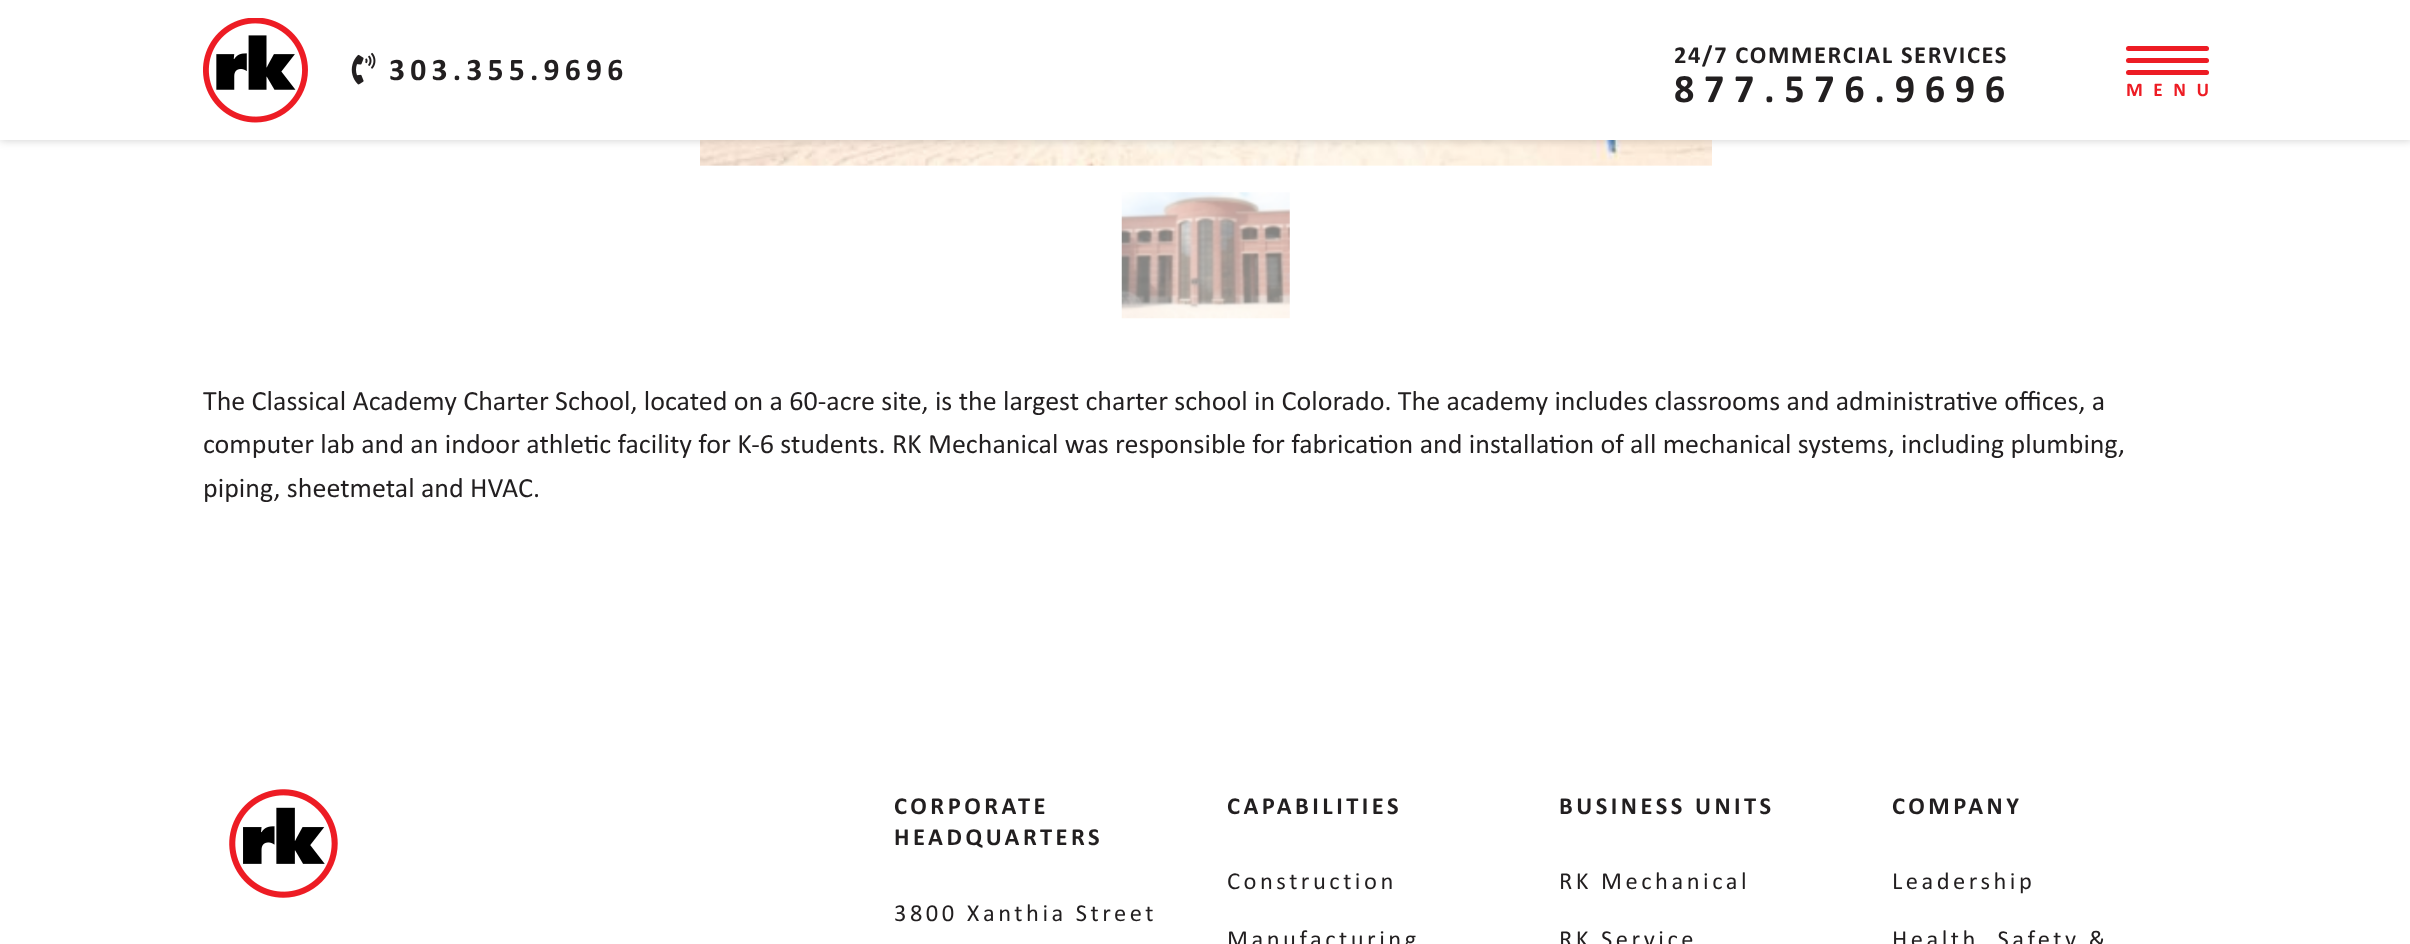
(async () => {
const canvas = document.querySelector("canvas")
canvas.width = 2410
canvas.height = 944
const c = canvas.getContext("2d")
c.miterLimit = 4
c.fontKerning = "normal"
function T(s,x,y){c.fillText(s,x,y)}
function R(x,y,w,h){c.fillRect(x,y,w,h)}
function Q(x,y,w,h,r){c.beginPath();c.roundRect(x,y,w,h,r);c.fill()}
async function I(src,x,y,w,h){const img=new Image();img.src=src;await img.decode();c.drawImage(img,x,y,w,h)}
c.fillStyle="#fff"
R(0,0,2410,944)
await I("3.png",700,140,1012,26)
c.fillStyle="#00000033"
c.filter="blur(5px)"
c.beginPath()
c.rect(0,0,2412,140)
c.fill()
c.filter="none"
c.fillStyle="#fff"
R(0,0,2410,140)
await I("1.png",203,18,105,105)
await I("2.png",351,52,25,33)
c.letterSpacing="5.25px"
c.font="bold 31.5px Calibri"
c.fillStyle="#221f20"
T("303.355.9696",389,80)
c.letterSpacing="1.6px"
c.font="bold 24.5px Calibri"
T("24/7 COMMERCIAL SERVICES",1674,63)
c.letterSpacing="9.6px"
c.font="bold 40.25px Calibri"
T("877.576.9696",1674,102)
c.fillStyle="#ed1c24"
Q(2126,46,83,5,2.5)
Q(2126,58,83,5,2.5)
Q(2126,70,83,5,2.5)
c.letterSpacing="10.5px"
c.font="bold 19.25px Calibri"
T("MENU",2126,96)
await I("4.png",1121,192,169,127)
c.letterSpacing="0px"
c.font="28px Calibri"
c.fillStyle="#221f20"
T("The Classical Academy Charter School, located on a 60-acre site, is the largest charter school in Colorado. The academy includes classrooms and administrative offices, a",203,410)
T("computer lab and an indoor athletic facility for K-6 students. RK Mechanical was responsible for fabrication and installation of all mechanical systems, including plumbing,",203,453)
T("piping, sheetmetal and HVAC.",203,497)
await I("5.png",229,789,109,109)
c.letterSpacing="3.5px"
c.font="bold 24.5px Calibri"
T("CORPORATE",894,814)
T("HEADQUARTERS",894,845)
c.font="24.5px Calibri"
T("3800 Xanthia Street",894,921)
c.font="bold 24.5px Calibri"
T("CAPABILITIES",1227,814)
c.font="24.5px Calibri"
T("Construction",1227,889)
T("Manufacturing",1227,947)
c.font="bold 24.5px Calibri"
T("BUSINESS UNITS",1559,814)
c.font="24.5px Calibri"
T("RK Mechanical",1559,889)
T("RK Service",1559,947)
c.font="bold 24.5px Calibri"
T("COMPANY",1892,814)
c.font="24.5px Calibri"
T("Leadership",1892,889)
T("Health, Safety &",1892,947)
})()
